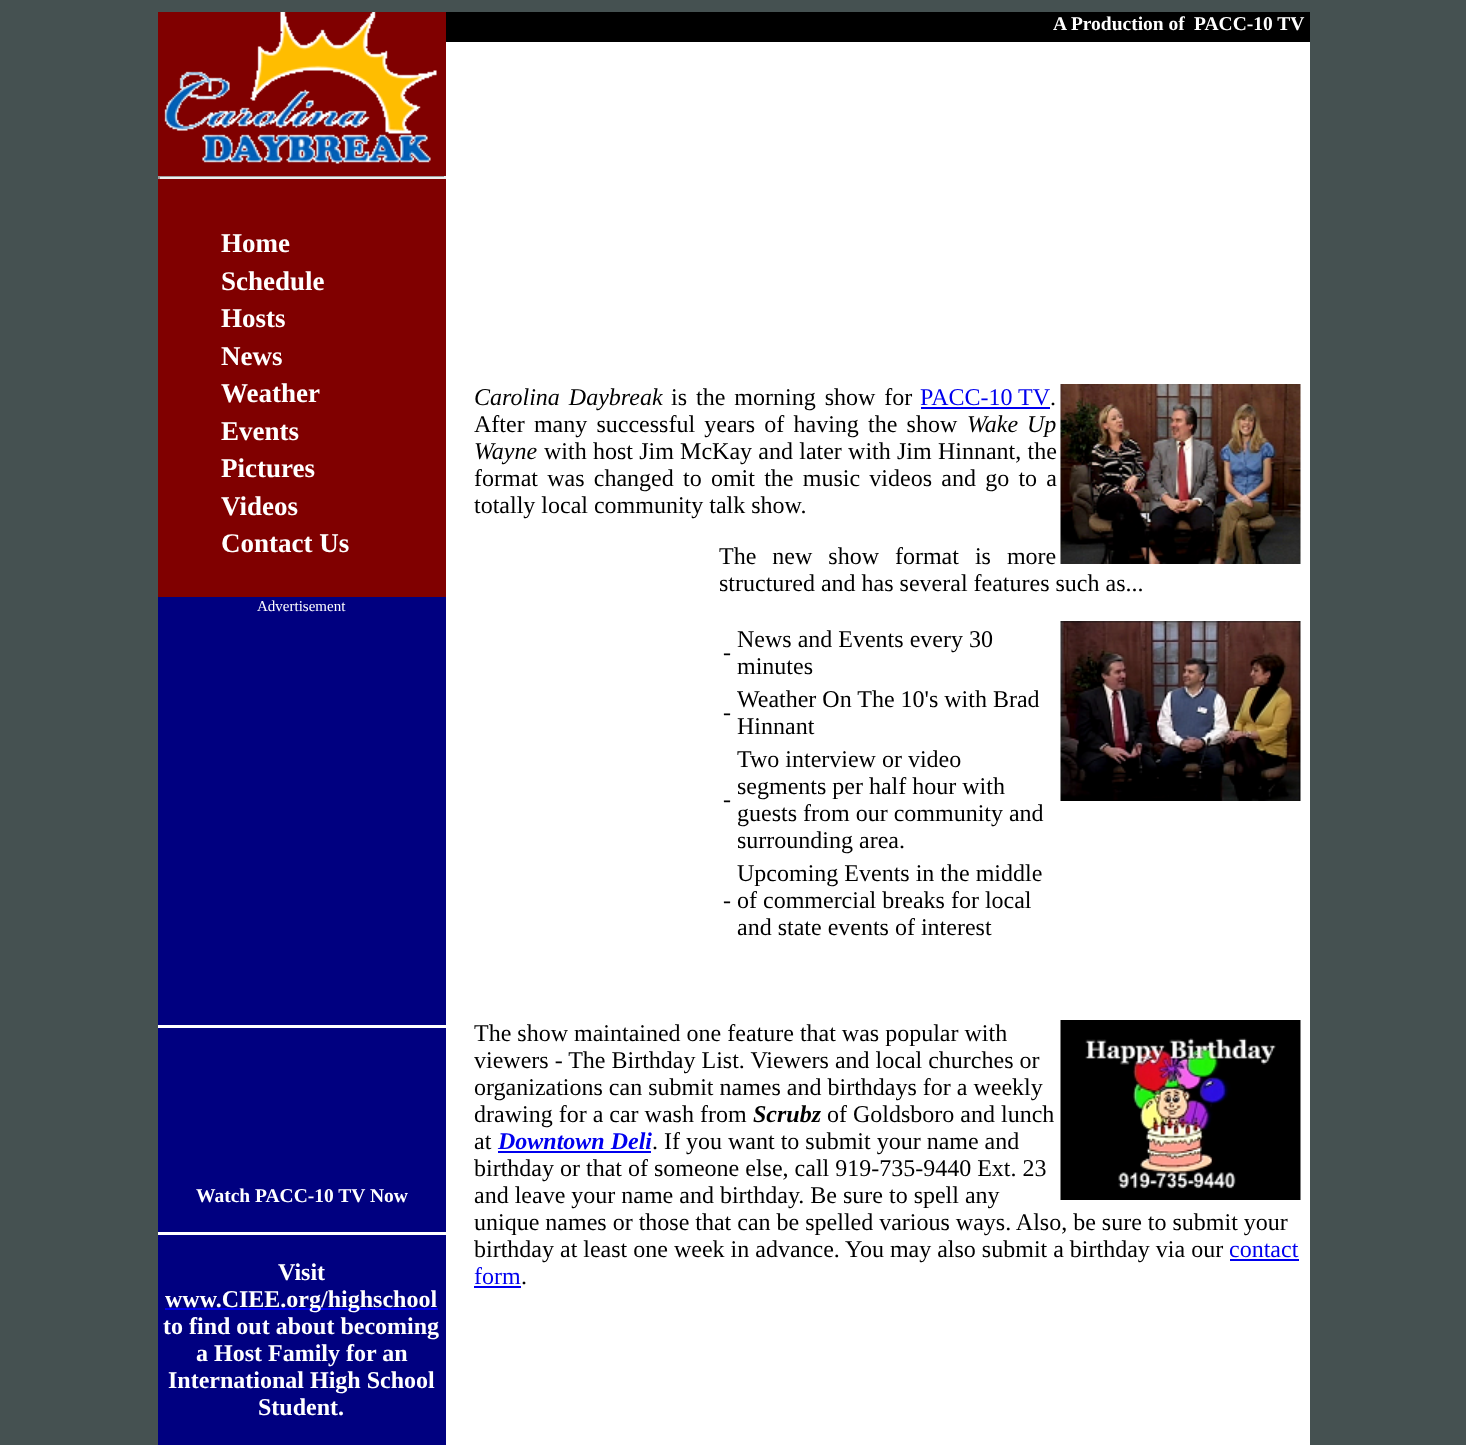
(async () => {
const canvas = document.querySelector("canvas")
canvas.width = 1466
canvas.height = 1445
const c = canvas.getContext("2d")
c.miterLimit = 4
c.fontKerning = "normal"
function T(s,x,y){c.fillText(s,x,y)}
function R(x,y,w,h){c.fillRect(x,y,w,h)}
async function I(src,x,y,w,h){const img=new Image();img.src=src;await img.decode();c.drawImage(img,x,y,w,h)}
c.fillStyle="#455151"
R(0,0,1466,1445)
c.fillStyle="#800000"
R(158,12,288,585)
await I("1.png",164,12,273,152)
c.fillStyle="#9f9f9f"
R(158,176,288,1)
c.fillStyle="#eee"
R(444,176,2,3)
R(158,177,288,2)
c.fillStyle="#9f9f9f"
R(158,176,2,3)
c.font="bold 27px Liberation Serif"
c.fillStyle="#fff"
T("Home",221,252)
T("Schedule",221,290)
T("Hosts",221,327)
T("News",221,365)
T("Weather",221,402)
T("Events",221,440)
T("Pictures",221,477)
T("Videos",221,515)
T("Contact Us",221,552)
c.fillStyle="#000080"
R(158,597,288,848)
c.font="15px Liberation Serif"
c.fillStyle="#fff"
T("Advertisement",257,611)
R(158,1025,288,3)
c.font="bold 19.5px Liberation Serif"
T("Watch PACC-10 TV Now",196,1202)
R(158,1232,288,3)
c.font="bold 24px Liberation Serif"
T("Visit",278,1280)
c.fillStyle="#00e"
R(165,1308,273,2)
c.fillStyle="#fff"
T("www.CIEE.org/highschool",165,1307)
T("to find out about becoming",163,1334)
T("a Host Family for an",196,1361)
T("International High School",168,1388)
T("Student.",258,1415)
R(446,42,864,1403)
c.fillStyle="#000"
R(446,12,864,30)
c.font="bold 19.5px Liberation Serif"
c.fillStyle="#fff"
T("A Production of",1053,30)
T("PACC-10 TV",1194,30)
c.wordSpacing="3px"
c.font="italic 24px Liberation Serif"
c.fillStyle="#000"
T("Carolina Daybreak",474,405)
c.wordSpacing="0px"
c.font="24px Liberation Serif"
T("is",671,405)
c.wordSpacing="3px"
T("the morning show for",696,405)
c.wordSpacing="0px"
c.fillStyle="#00e"
T("PACC-10 TV",920,405)
R(921,407,129,2)
c.fillStyle="#000"
T(".",1050,405)
await I("2.png",1060,384,241,180)
c.wordSpacing="3.25px"
T("After many successful years of having the show",474,432)
c.wordSpacing="0px"
c.font="italic 24px Liberation Serif"
T("Wake",967,432)
T("Up",1027,432)
T("Wayne",474,459)
c.wordSpacing="0.25px"
c.font="24px Liberation Serif"
T("with host Jim McKay and later with Jim Hinnant, the",544,459)
c.wordSpacing="3.25px"
T("format was changed to omit the music videos and go to a",474,486)
c.wordSpacing="0px"
T("totally local community talk show.",474,513)
c.wordSpacing="10px"
T("The new show format is more",719,564)
c.wordSpacing="0px"
T("structured and has several features such as...",719,591)
T("-",723,660)
T("News and Events every 30",737,647)
T("minutes",737,674)
T("-",723,720)
T("Weather On The 10's with Brad",737,707)
T("Hinnant",737,734)
T("-",723,807)
T("Two interview or video",737,767)
T("segments per half hour with",737,794)
T("guests from our community and",737,821)
T("surrounding area.",737,848)
T("Upcoming Events in the middle",737,881)
T("and state events of interest",737,935)
T("- of commercial breaks for local",723,908)
await I("3.png",1060,621,241,180)
T("The show maintained one feature that was popular with",474,1041)
await I("4.png",1060,1020,241,180)
T("viewers - The Birthday List. Viewers and local churches or",474,1068)
T("organizations can submit names and birthdays for a weekly",474,1095)
T("drawing for a car wash from",474,1122)
c.font="italic bold 24px Liberation Serif"
T("Scrubz",753,1122)
c.font="24px Liberation Serif"
T("of Goldsboro and lunch",827,1122)
T("at",474,1149)
c.font="italic bold 24px Liberation Serif"
c.fillStyle="#00e"
T("Downtown Deli",498,1149)
R(498,1151,153,2)
c.font="24px Liberation Serif"
c.fillStyle="#000"
T(". If you want to submit your name and",652,1149)
T("birthday or that of someone else, call 919-735-9440 Ext. 23",474,1176)
T("and leave your name and birthday. Be sure to spell any",474,1203)
T("unique names or those that can be spelled various ways. Also, be sure to submit your",474,1230)
T("birthday at least one week in advance. You may also submit a birthday via our",474,1257)
c.fillStyle="#00e"
T("contact",1229,1257)
R(1230,1259,69,2)
T("form",474,1284)
R(474,1286,47,2)
c.fillStyle="#000"
T(".",521,1284)
})()
